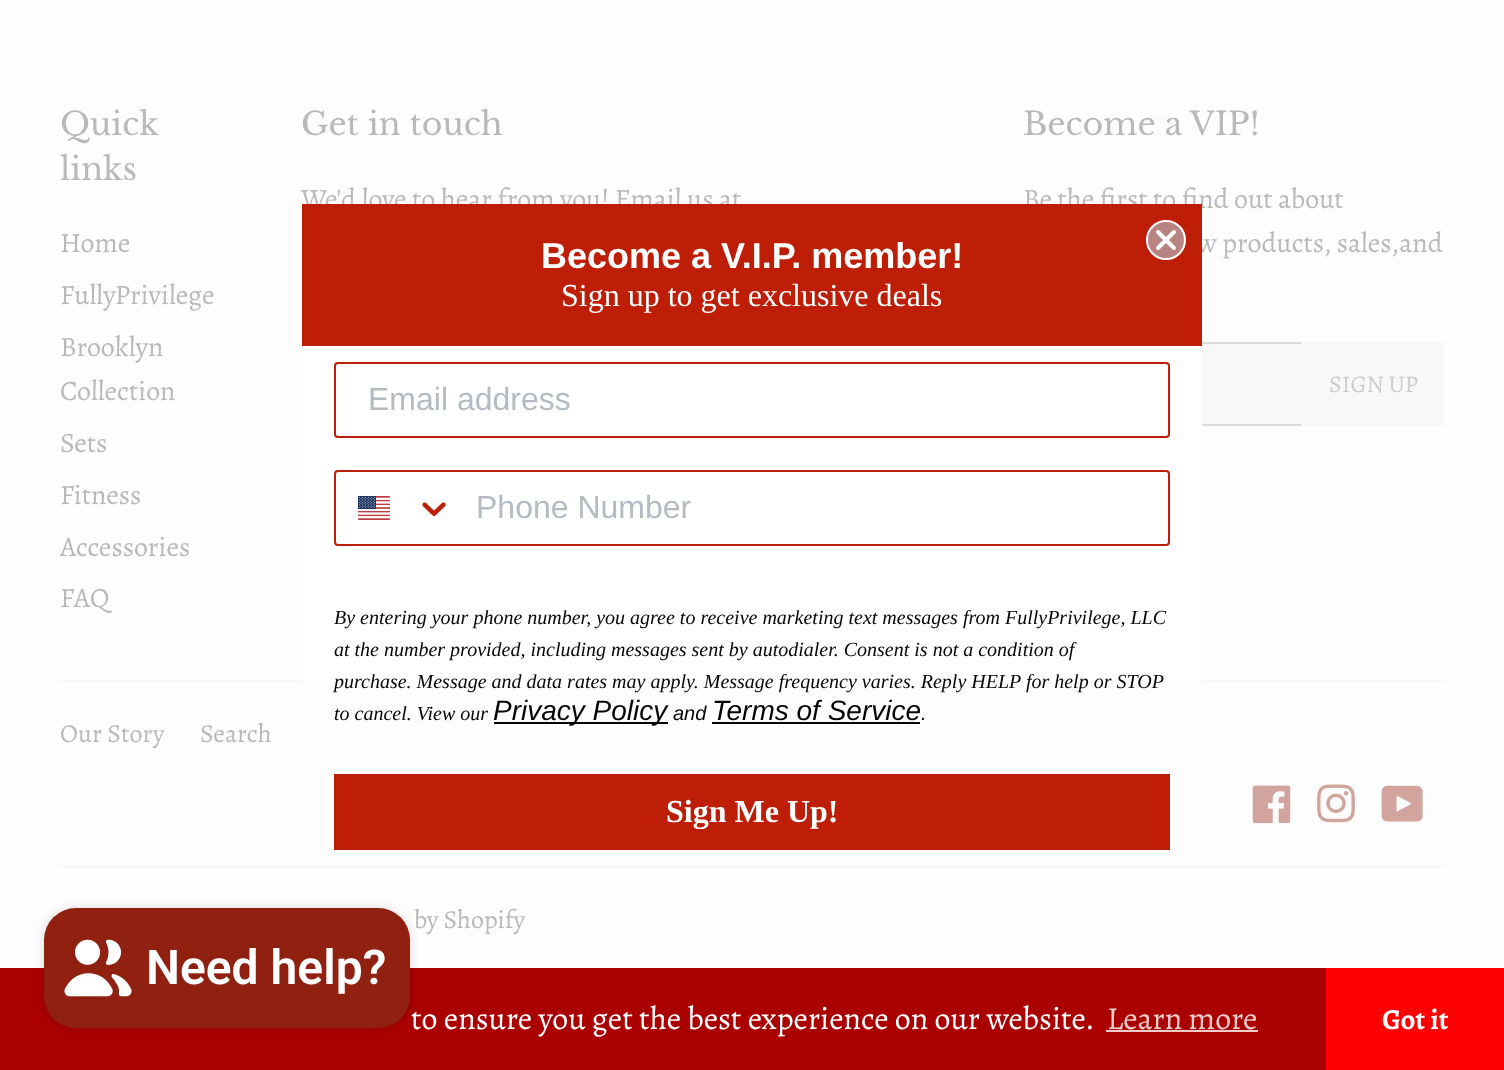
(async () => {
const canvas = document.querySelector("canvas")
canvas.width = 1504
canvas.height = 1070
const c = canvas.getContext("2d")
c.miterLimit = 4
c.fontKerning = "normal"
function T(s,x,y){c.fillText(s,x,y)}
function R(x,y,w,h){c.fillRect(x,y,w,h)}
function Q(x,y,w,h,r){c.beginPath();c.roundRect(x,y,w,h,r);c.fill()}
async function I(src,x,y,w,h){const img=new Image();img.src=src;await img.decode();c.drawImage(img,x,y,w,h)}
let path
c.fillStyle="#fdfdfd"
R(0,0,1504,1070)
c.font="31.75px Libre Baskerville"
c.fillStyle="#b9b9b9"
T("Quick",60,135)
T("links",60,180)
c.font="28px Alegreya"
T("Home",60,252)
T("FullyPrivilege",60,304)
T("Brooklyn",60,356)
T("Collection",60,400)
T("Sets",60,452)
T("Fitness",60,504)
T("Accessories",60,556)
T("FAQ",60,607)
c.font="31.75px Libre Baskerville"
T("Get in touch",301,135)
c.font="28px Alegreya"
T("We'd love to hear from you! Email us at",301,208)
c.font="31.75px Libre Baskerville"
T("Become a VIP!",1023,135)
c.font="28px Alegreya"
T("Be the first to find out about",1023,208)
T("w products, sales,and",1197,252)
c.fillStyle="#f8f8f8"
Q(1022,342,282,84,4)
c.fillStyle="#dcdcdc"
R(1202,342,100,2)
R(1202,424,100,2)
c.fillStyle="#f8f8f8"
c.beginPath()
c.roundRect(1304,342,140,84,[0,4,4,0])
c.fill()
c.font="24px Alegreya"
c.fillStyle="#ccc"
T("SIGN UP",1329,392)
c.fillStyle="#f8f8f8"
R(60,680,1384,2)
c.font="26px Alegreya"
c.fillStyle="#b9b9b9"
T("Our Story",60,742)
T("Search",200,742)
await I("1.png",1252,785,39,39)
await I("2.png",1317,784,38,39)
await I("3.png",1381,785,42,37)
c.fillStyle="#f8f8f8"
R(60,866,1384,2)
c.fillStyle="#b9b9b9"
T("by Shopify",414,928)
c.fillStyle="#bd1e05"
R(302,204,900,142)
c.fillStyle="#b78481"
c.beginPath()
c.arc(1166,240,19,0,7)
c.fill()
c.strokeStyle="#fff"
c.lineWidth=2
c.stroke()
path = new Path2D("M1158 232l16 16m-16 0l16-16z")
c.lineWidth=4
c.lineCap="round"
c.lineJoin="round"
c.stroke(path)
c.fillStyle="#fff"
R(302,346,900,336)
c.font="bold 36px Liberation Sans"
T("Become a V.I.P. member!",541,268)
c.font="32px Liberation Serif"
T("Sign up to get exclusive deals",561,306)
c.beginPath()
c.roundRect(335,363,834,74,3)
c.strokeStyle="#bd1e05"
c.lineWidth=2
c.lineJoin="miter"
c.stroke()
c.font="32px Liberation Sans"
c.fillStyle="#b4bbc3"
T("Email address",368,410)
c.beginPath()
c.roundRect(335,471,834,74,3)
c.stroke()
await I("4.png",358,496,32,24)
await I("5.png",422,502,24,14)
T("Phone Number",476,518)
c.font="italic 20px Liberation Serif"
c.fillStyle="#050505"
T("By entering your phone number, you agree to receive marketing text messages from FullyPrivilege, LLC",334,624)
T("at the number provided, including messages sent by autodialer. Consent is not a condition of",334,656)
T("purchase. Message and data rates may apply. Message frequency varies. Reply HELP for help or STOP",334,688)
T("to cancel. View our",334,720)
R(494,722,174,2)
c.font="italic 28px Liberation Sans"
T("Privacy Policy",493,720)
c.font="italic 20px Liberation Sans"
T("and",673,720)
c.font="italic 28px Liberation Sans"
T("Terms of Service",712,720)
R(712,722,208,2)
c.font="italic 20px Liberation Sans"
T(".",921,720)
c.fillStyle="#bd1e05"
R(334,774,836,76)
c.font="bold 32px Liberation Serif"
c.fillStyle="#fff"
T("Sign Me Up!",666,822)
c.fillStyle="#a00"
R(0,968,1326,102)
c.fillStyle="#00000026"
c.filter="blur(5px)"
c.beginPath()
c.roundRect(44,908,366,120,32)
c.fill()
c.filter="none"
c.fillStyle="#90200f"
Q(44,908,366,120,32)
await I("6.png",64,939,68,58)
c.font="600 48px Roboto"
c.fillStyle="#fff"
T("Need help?",146,984)
c.font="32px Alegreya"
T("to ensure you get the best experience on our website.",411,1029)
c.fillStyle="#ecc"
T("Learn more",1107,1029)
R(1106,1030,152,2)
c.fillStyle="#f00"
R(1326,968,178,102)
c.font="bold 29px Alegreya"
c.fillStyle="#fff"
T("Got it",1382,1029)
})()
